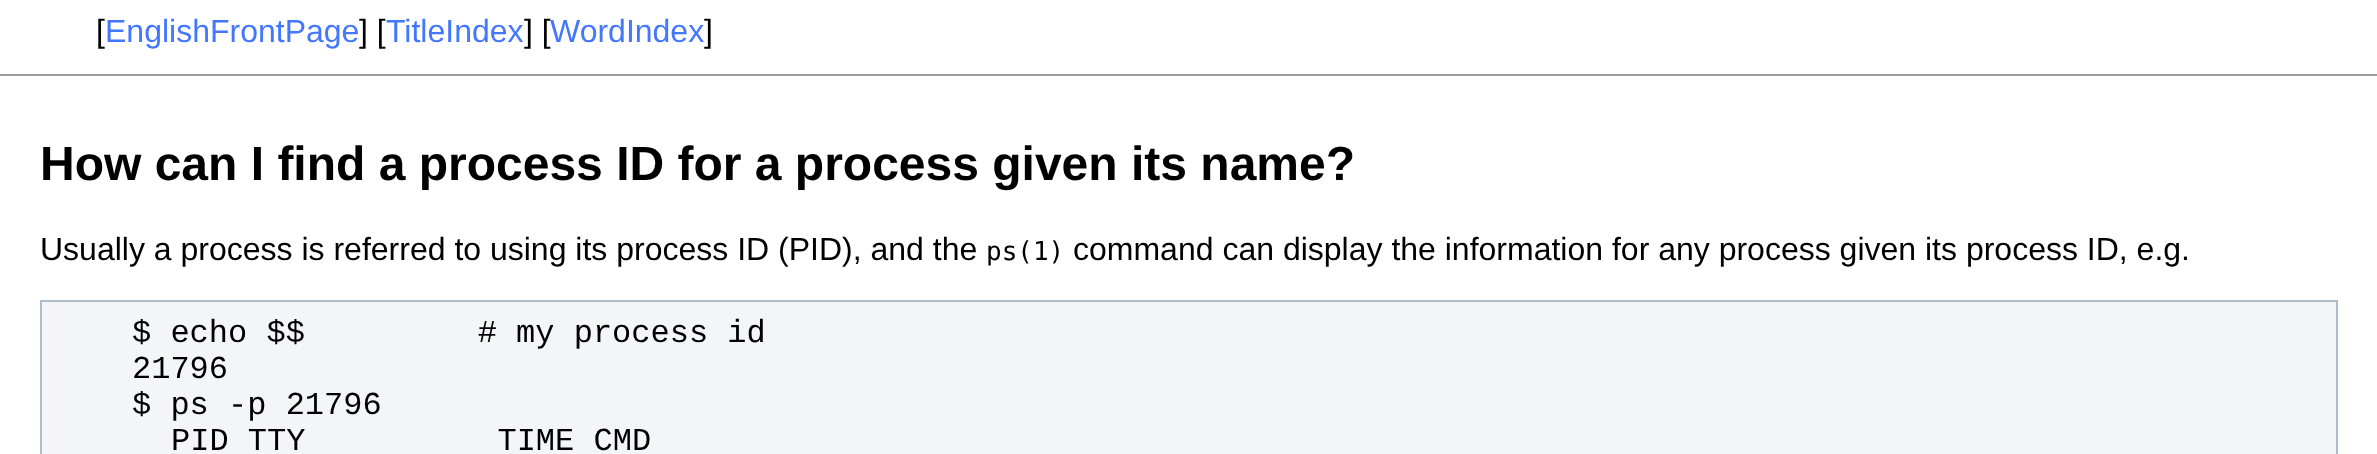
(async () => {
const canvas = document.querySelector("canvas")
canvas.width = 2377
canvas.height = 454
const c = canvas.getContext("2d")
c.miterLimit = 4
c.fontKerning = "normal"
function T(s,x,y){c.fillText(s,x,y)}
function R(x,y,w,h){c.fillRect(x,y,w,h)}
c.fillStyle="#fff"
R(0,0,2377,454)
c.font="32px Liberation Sans"
c.fillStyle="#000"
T("[",96,42)
c.fillStyle="#47f"
T("EnglishFrontPage",105,42)
c.fillStyle="#000"
T("] [",359,42)
c.fillStyle="#47f"
T("TitleIndex",386,42)
c.fillStyle="#000"
T("] [",524,42)
c.fillStyle="#47f"
T("WordIndex",550,42)
c.fillStyle="#000"
T("]",704,42)
c.fillStyle="#9c9c9c"
R(0,74,2377,2)
c.font="bold 48px Liberation Sans"
c.fillStyle="#000"
T("How can I find a process ID for a process given its name?",40,180)
c.font="32px Liberation Sans"
T("Usually a process is referred to using its process ID (PID), and the",40,260)
c.font="26px DejaVu Sans Mono"
T("ps(1)",986,260)
c.font="32px Liberation Sans"
T("command can display the information for any process given its process ID, e.g.",1073,260)
c.fillStyle="#f3f5f7"
c.beginPath()
c.rect(41,301,2296,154)
c.fill()
c.strokeStyle="#aebdcc"
c.lineWidth=2
c.stroke()
c.font="32px Liberation Mono"
c.fillStyle="#000"
T("$ echo $$         # my process id",132,342)
T("21796",132,378)
T("$ ps -p 21796",132,414)
T("PID TTY          TIME CMD",171,450)
})()
